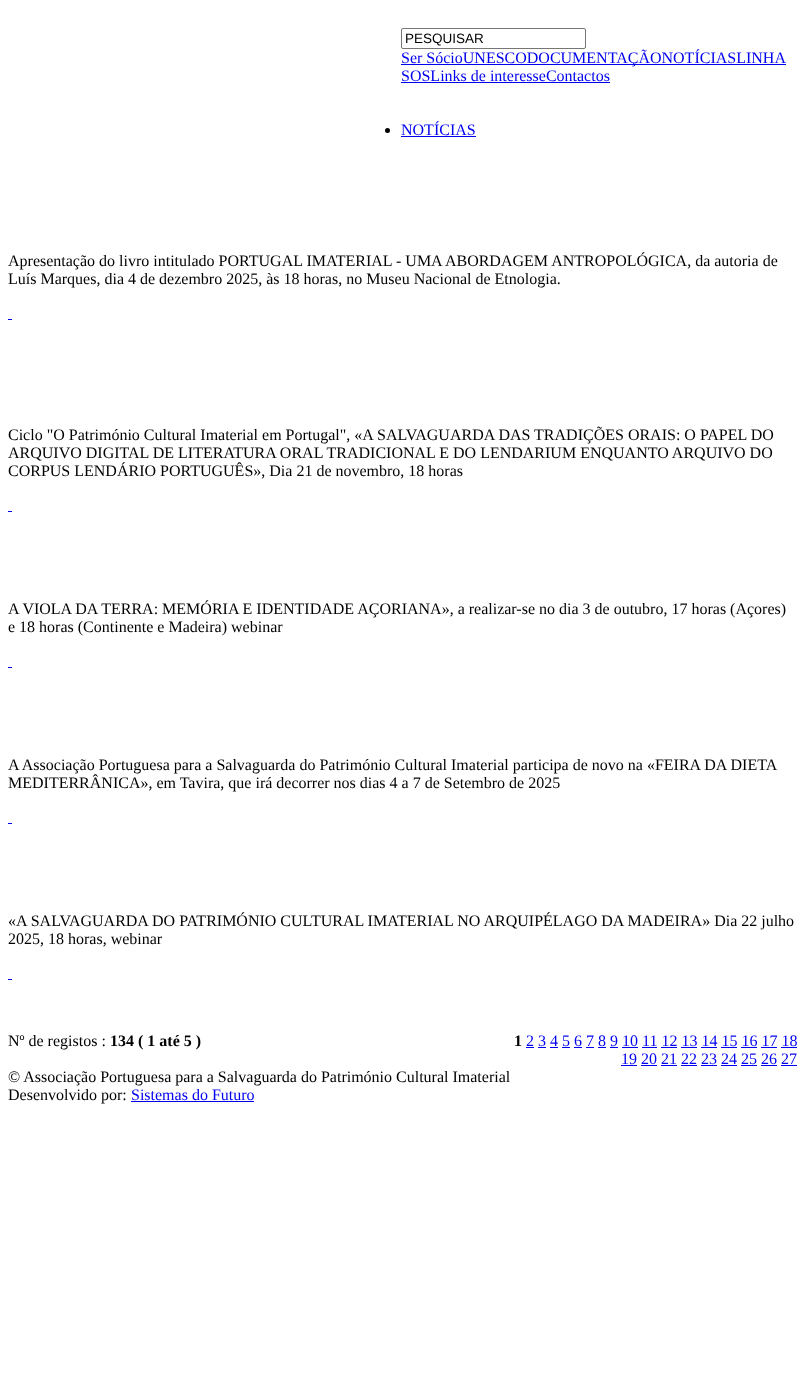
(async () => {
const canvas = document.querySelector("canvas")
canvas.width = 805
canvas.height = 1400
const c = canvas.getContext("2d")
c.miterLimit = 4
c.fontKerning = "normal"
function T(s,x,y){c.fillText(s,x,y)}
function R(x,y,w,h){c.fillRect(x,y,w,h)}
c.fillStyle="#fff"
R(0,0,805,1400)
c.beginPath()
c.roundRect(401.5,28.5,184,20,1.5)
c.strokeStyle="#767676"
c.stroke()
c.font="13.5px Liberation Sans"
c.fillStyle="#000"
T("PESQUISAR",405,43)
c.fillStyle="#00e"
R(401,64,385,1)
c.font="16px Liberation Serif"
T("Ser SócioUNESCODOCUMENTAÇÃONOTÍCIASLINHA",401,63)
T("SOSLinks de interesseContactos",401,81)
R(401,82,209,1)
c.fillStyle="#000"
c.beginPath()
c.arc(387.5,130.5,2.5,0,7)
c.fill()
c.fillStyle="#00e"
T("NOTÍCIAS",401,135)
R(401,136,75,1)
c.fillStyle="#000"
T("Apresentação do livro intitulado PORTUGAL IMATERIAL - UMA ABORDAGEM ANTROPOLÓGICA, da autoria de",8,266)
T("Luís Marques, dia 4 de dezembro 2025, às 18 horas, no Museu Nacional de Etnologia.",8,284)
c.fillStyle="#00e"
R(8,319,4,1)
c.fillStyle="#000"
T("Ciclo \"O Património Cultural Imaterial em Portugal\", «A SALVAGUARDA DAS TRADIÇÕES ORAIS: O PAPEL DO",8,440)
T("ARQUIVO DIGITAL DE LITERATURA ORAL TRADICIONAL E DO LENDARIUM ENQUANTO ARQUIVO DO",8,458)
T("CORPUS LENDÁRIO PORTUGUÊS», Dia 21 de novembro, 18 horas",8,476)
c.fillStyle="#00e"
R(8,511,4,1)
c.fillStyle="#000"
T("A VIOLA DA TERRA: MEMÓRIA E IDENTIDADE AÇORIANA», a realizar-se no dia 3 de outubro, 17 horas (Açores)",8,614)
T("e 18 horas (Continente e Madeira) webinar",8,632)
c.fillStyle="#00e"
R(8,667,4,1)
c.fillStyle="#000"
T("A Associação Portuguesa para a Salvaguarda do Património Cultural Imaterial participa de novo na «FEIRA DA DIETA",8,770)
T("MEDITERRÂNICA», em Tavira, que irá decorrer nos dias 4 a 7 de Setembro de 2025",8,788)
c.fillStyle="#00e"
R(8,823,4,1)
c.fillStyle="#000"
T("«A SALVAGUARDA DO PATRIMÓNIO CULTURAL IMATERIAL NO ARQUIPÉLAGO DA MADEIRA» Dia 22 julho",8,926)
T("2025, 18 horas, webinar",8,944)
c.fillStyle="#00e"
R(8,979,4,1)
c.fillStyle="#000"
T("Nº de registos :",8,1046)
c.font="bold 16px Liberation Serif"
T("134 ( 1 até 5 )",110,1046)
T("1",514,1046)
c.font="16px Liberation Serif"
c.fillStyle="#00e"
T("2 3 4 5 6 7 8 9 10 11 12 13 14 15 16 17 18",526,1046)
R(526,1047,8,1)
R(538,1047,8,1)
R(550,1047,8,1)
R(562,1047,8,1)
R(574,1047,8,1)
R(586,1047,8,1)
R(598,1047,8,1)
R(610,1047,8,1)
R(622,1047,16,1)
R(642,1047,15,1)
R(661,1047,16,1)
R(681,1047,16,1)
R(701,1047,16,1)
R(721,1047,16,1)
R(741,1047,16,1)
R(761,1047,16,1)
R(781,1047,16,1)
T("19 20 21 22 23 24 25 26 27",621,1064)
R(621,1065,16,1)
R(641,1065,16,1)
R(661,1065,16,1)
R(681,1065,16,1)
R(701,1065,16,1)
R(721,1065,16,1)
R(741,1065,16,1)
R(761,1065,16,1)
R(781,1065,16,1)
c.fillStyle="#000"
T("© Associação Portuguesa para a Salvaguarda do Património Cultural Imaterial",8,1082)
T("Desenvolvido por:",8,1100)
c.fillStyle="#00e"
T("Sistemas do Futuro",131,1100)
R(131,1101,123,1)
})()
